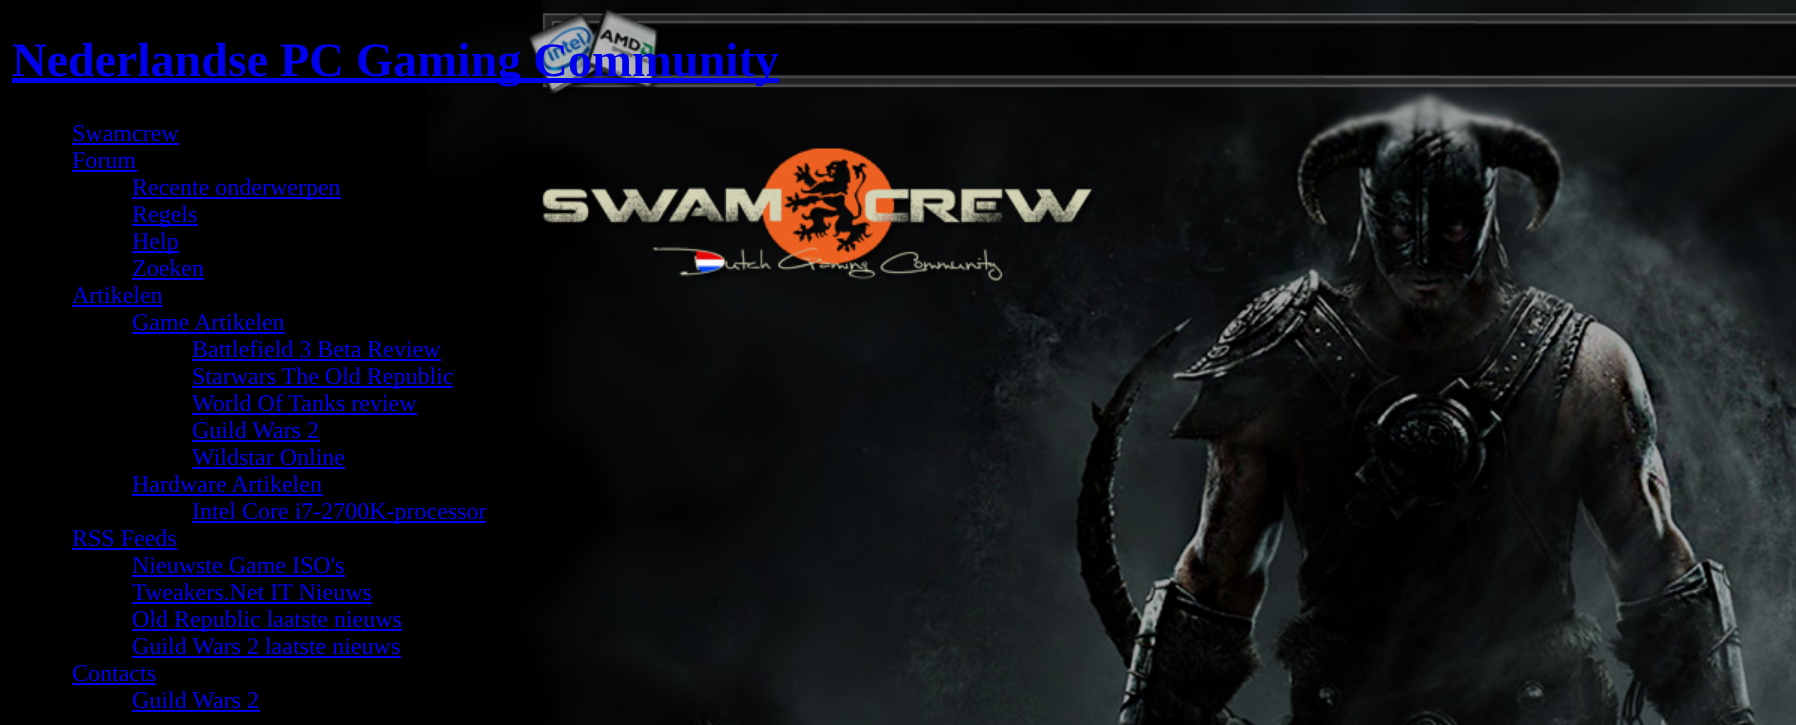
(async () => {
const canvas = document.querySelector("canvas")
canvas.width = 1796
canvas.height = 725
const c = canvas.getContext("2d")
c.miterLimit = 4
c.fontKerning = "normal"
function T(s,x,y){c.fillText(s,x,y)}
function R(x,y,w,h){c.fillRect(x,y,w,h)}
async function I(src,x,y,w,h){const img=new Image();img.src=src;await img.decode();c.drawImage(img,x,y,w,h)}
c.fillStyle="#000"
R(0,0,1796,725)
await I("1.png",427,0,1369,725)
c.fillStyle="#00e"
R(12,78,767,5)
c.font="bold 48px Liberation Serif"
T("Nederlandse PC Gaming Community",12,76)
c.font="24px Liberation Serif"
T("Swamcrew",72,141)
R(72,143,107,2)
T("Forum",72,168)
R(72,170,65,2)
R(132,197,209,2)
T("Recente onderwerpen",132,195)
R(132,224,66,2)
T("Regels",132,222)
R(132,251,47,2)
T("Help",132,249)
T("Zoeken",132,276)
R(132,278,72,2)
T("Artikelen",72,303)
R(72,305,90,2)
T("Game Artikelen",132,330)
R(132,332,153,2)
T("Battlefield 3 Beta Review",192,357)
R(192,359,249,2)
R(192,386,261,2)
T("Starwars The Old Republic",192,384)
T("World Of Tanks review",192,411)
R(192,413,225,2)
T("Guild Wars 2",192,438)
R(192,440,128,2)
T("Wildstar Online",192,465)
R(192,467,153,2)
T("Hardware Artikelen",132,492)
R(132,494,191,2)
R(192,521,294,2)
T("Intel Core i7-2700K-processor",192,519)
T("RSS Feeds",72,546)
R(72,548,105,2)
T("Nieuwste Game ISO's",132,573)
R(132,575,213,2)
T("Tweakers.Net IT Nieuws",132,600)
R(132,602,240,2)
R(132,629,270,2)
T("Old Republic laatste nieuws",132,627)
T("Guild Wars 2 laatste nieuws",132,654)
R(132,656,269,2)
T("Contacts",72,681)
R(72,683,84,2)
T("Guild Wars 2",132,708)
R(132,710,128,2)
})()
